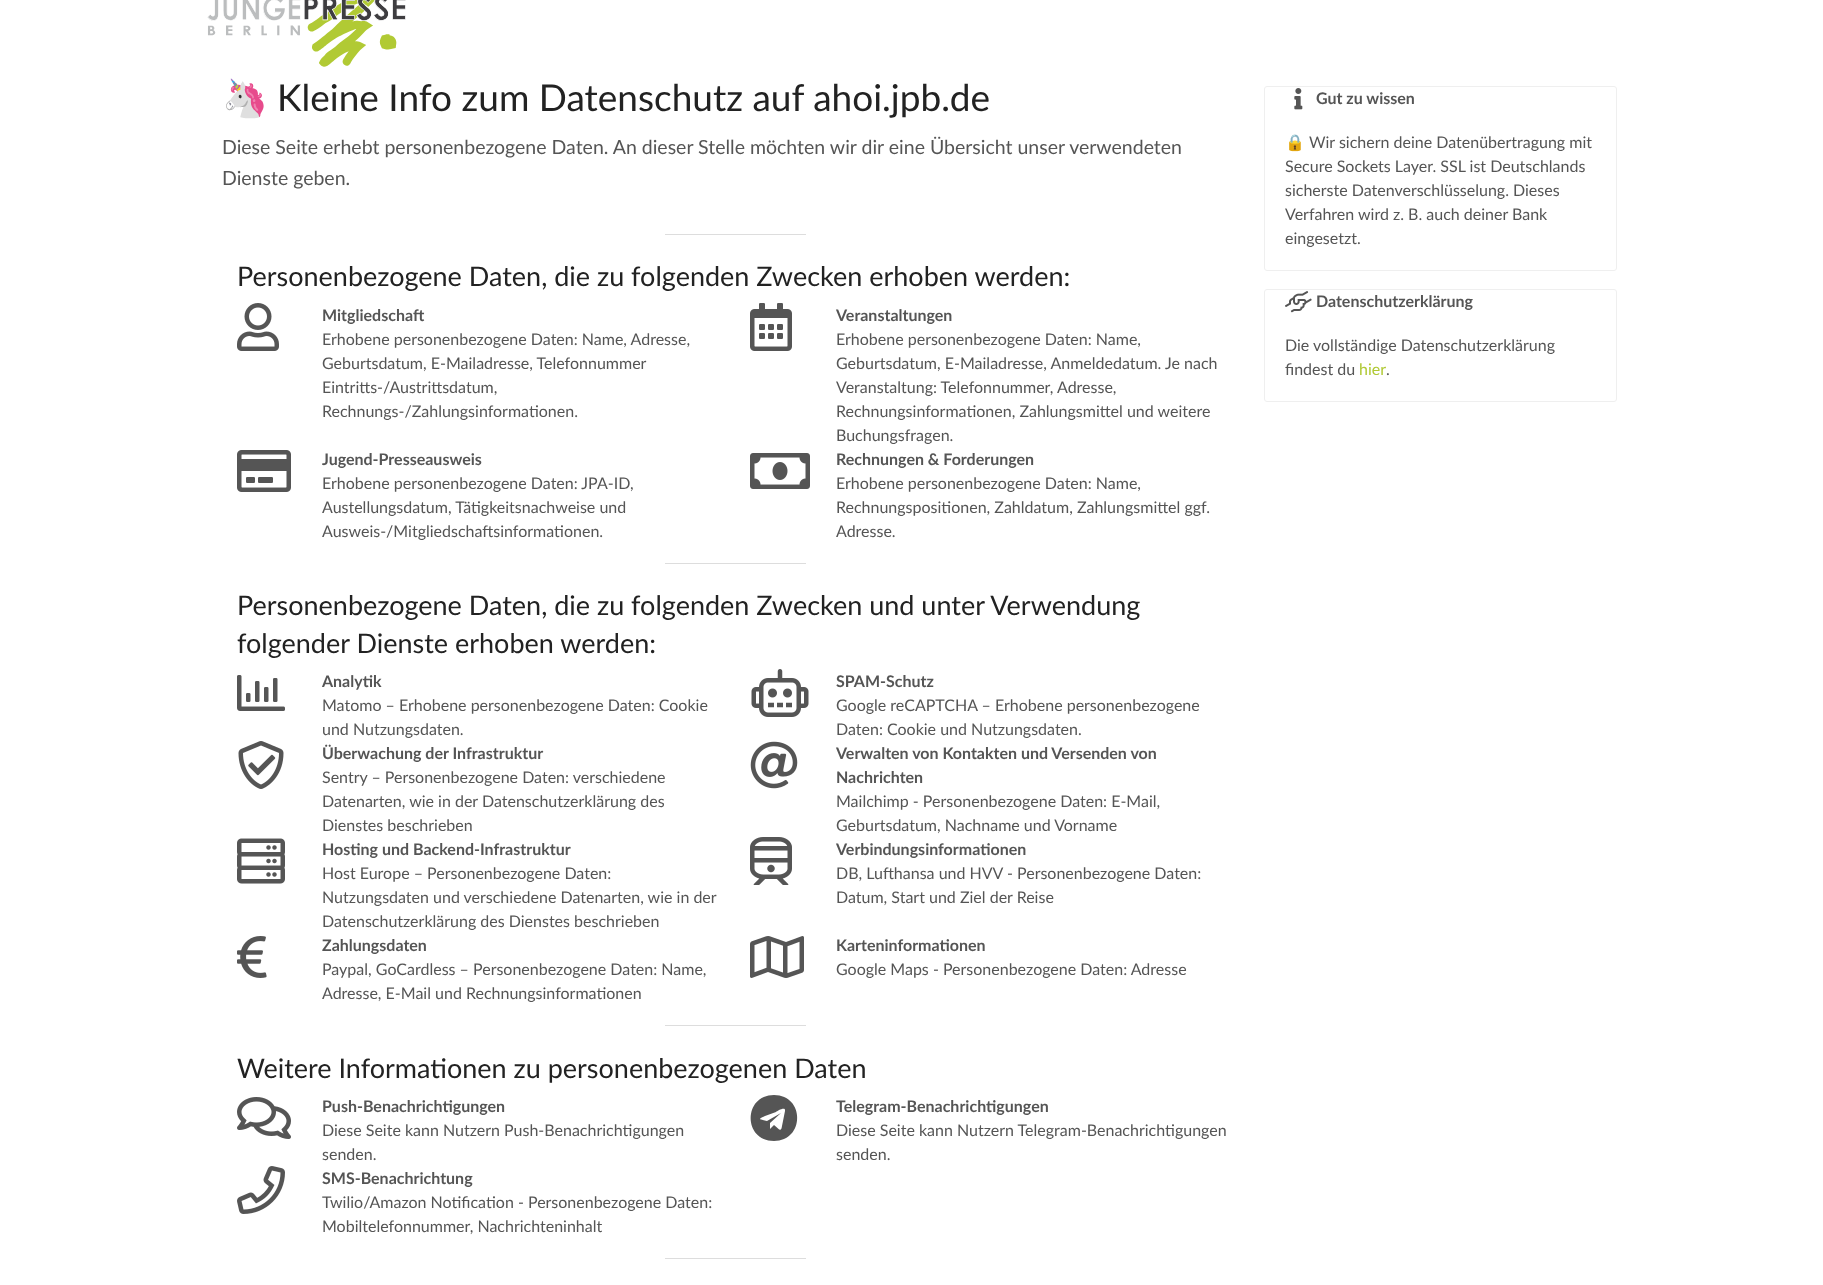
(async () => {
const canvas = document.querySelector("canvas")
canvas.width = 1823
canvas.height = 1285
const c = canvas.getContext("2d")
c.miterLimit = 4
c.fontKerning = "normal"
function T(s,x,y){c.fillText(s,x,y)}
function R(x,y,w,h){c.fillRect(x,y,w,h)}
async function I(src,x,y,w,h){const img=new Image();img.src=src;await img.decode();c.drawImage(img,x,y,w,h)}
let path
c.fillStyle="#fff"
R(0,0,1823,1285)
await I("1.png",207,0,199,67)
c.font="37px Noto Color Emoji"
c.fillStyle="#222"
T("🦄",222,111)
c.font="37px Lato"
T("Kleine Info zum Datenschutz auf ahoi.jpb.de",277,111)
c.font="19.5px Lato"
c.fillStyle="#555"
T("Diese Seite erhebt personenbezogene Daten. An dieser Stelle möchten wir dir eine Übersicht unser verwendeten",222,154)
T("Dienste geben.",222,185)
c.fillStyle="#ddd"
R(665,234,141,1)
c.font="27px Lato"
c.fillStyle="#222"
T("Personenbezogene Daten, die zu folgenden Zwecken erhoben werden:",237,286)
await I("2.png",237,303,42,48)
c.font="bold 16px Lato"
c.fillStyle="#555"
T("Mitgliedschaft",322,321)
c.font="16px Lato"
T("Erhobene personenbezogene Daten: Name, Adresse,",322,345)
T("Geburtsdatum, E-Mailadresse, Telefonnummer",322,369)
T("Eintritts-/Austrittsdatum,",322,393)
T("Rechnungs-/Zahlungsinformationen.",322,417)
await I("3.png",750,303,42,48)
c.font="bold 16px Lato"
T("Veranstaltungen",836,321)
c.font="16px Lato"
T("Erhobene personenbezogene Daten: Name,",836,345)
T("Geburtsdatum, E-Mailadresse, Anmeldedatum. Je nach",836,369)
T("Veranstaltung: Telefonnummer, Adresse,",836,393)
T("Rechnungsinformationen, Zahlungsmittel und weitere",836,417)
T("Buchungsfragen.",836,441)
await I("4.png",237,450,54,42)
c.font="bold 16px Lato"
T("Jugend-Presseausweis",322,465)
c.font="16px Lato"
T("Erhobene personenbezogene Daten: JPA-ID,",322,489)
T("Austellungsdatum, Tätigkeitsnachweise und",322,513)
T("Ausweis-/Mitgliedschaftsinformationen.",322,537)
await I("5.png",750,453,60,36)
c.font="bold 16px Lato"
T("Rechnungen & Forderungen",836,465)
c.font="16px Lato"
T("Erhobene personenbezogene Daten: Name,",836,489)
T("Rechnungspositionen, Zahldatum, Zahlungsmittel ggf.",836,513)
T("Adresse.",836,537)
c.fillStyle="#ddd"
R(665,563,141,1)
c.font="27px Lato"
c.fillStyle="#222"
T("Personenbezogene Daten, die zu folgenden Zwecken und unter Verwendung",237,615)
T("folgender Dienste erhoben werden:",237,653)
await I("6.png",237,675,48,36)
c.font="bold 16px Lato"
c.fillStyle="#555"
T("Analytik",322,687)
c.font="16px Lato"
T("Matomo – Erhobene personenbezogene Daten: Cookie",322,711)
T("und Nutzungsdaten.",322,735)
await I("7.png",751,669,58,48)
c.font="bold 16px Lato"
T("SPAM-Schutz",836,687)
c.font="16px Lato"
T("Google reCAPTCHA – Erhobene personenbezogene",836,711)
T("Daten: Cookie und Nutzungsdaten.",836,735)
await I("8.png",238,741,46,48)
c.font="bold 16px Lato"
T("Überwachung der Infrastruktur",322,759)
c.font="16px Lato"
T("Sentry – Personenbezogene Daten: verschiedene",322,783)
T("Datenarten, wie in der Datenschutzerklärung des",322,807)
T("Dienstes beschrieben",322,831)
await I("9.png",750,741,48,48)
c.font="bold 16px Lato"
T("Verwalten von Kontakten und Versenden von",836,759)
T("Nachrichten",836,783)
c.font="16px Lato"
T("Mailchimp - Personenbezogene Daten: E-Mail,",836,807)
T("Geburtsdatum, Nachname und Vorname",836,831)
await I("10.png",237,838,48,46)
c.font="bold 16px Lato"
T("Hosting und Backend-Infrastruktur",322,855)
c.font="16px Lato"
T("Host Europe – Personenbezogene Daten:",322,879)
T("Nutzungsdaten und verschiedene Datenarten, wie in der",322,903)
T("Datenschutzerklärung des Dienstes beschrieben",322,927)
await I("11.png",750,837,42,48)
c.font="bold 16px Lato"
T("Verbindungsinformationen",836,855)
c.font="16px Lato"
T("DB, Lufthansa und HVV - Personenbezogene Daten:",836,879)
T("Datum, Start und Ziel der Reise",836,903)
await I("12.png",237,936,30,42)
c.font="bold 16px Lato"
T("Zahlungsdaten",322,951)
c.font="16px Lato"
T("Paypal, GoCardless – Personenbezogene Daten: Name,",322,975)
T("Adresse, E-Mail und Rechnungsinformationen",322,999)
await I("13.png",750,936,54,42)
c.font="bold 16px Lato"
T("Karteninformationen",836,951)
c.font="16px Lato"
T("Google Maps - Personenbezogene Daten: Adresse",836,975)
c.fillStyle="#ddd"
R(665,1025,141,1)
c.font="27px Lato"
c.fillStyle="#222"
T("Weitere Informationen zu personenbezogenen Daten",237,1078)
await I("14.png",237,1097,54,42)
c.font="bold 16px Lato"
c.fillStyle="#555"
T("Push-Benachrichtigungen",322,1112)
c.font="16px Lato"
T("Diese Seite kann Nutzern Push-Benachrichtigungen",322,1136)
T("senden.",322,1160)
path = new Path2D("M774 1095c-31 0-31 46 0 46c31 0 31-46 0-46zm11 16l-3 15c-1 7-3 3-8-1l-4 4v-6l11-10l-14 8c-6-2-11-1-2-5l11-4c1-1 10-6 9-1z")
c.fill(path)
c.font="bold 16px Lato"
T("Telegram-Benachrichtigungen",836,1112)
c.font="16px Lato"
T("Diese Seite kann Nutzern Telegram-Benachrichtigungen",836,1136)
T("senden.",836,1160)
await I("15.png",237,1166,48,48)
c.font="bold 16px Lato"
T("SMS-Benachrichtung",322,1184)
c.font="16px Lato"
T("Twilio/Amazon Notification - Personenbezogene Daten:",322,1208)
T("Mobiltelefonnummer, Nachrichteninhalt",322,1232)
c.fillStyle="#ddd"
R(665,1258,141,1)
c.beginPath()
c.roundRect(1264.5,86.5,352,184,2.5)
c.strokeStyle="#efefef"
c.stroke()
await I("16.png",1294,88,9,22)
c.font="bold 16px Lato"
c.fillStyle="#555"
T("Gut zu wissen",1316,104)
c.font="16px Noto Color Emoji"
T("🔒",1285,148)
c.font="16px Lato"
T("Wir sichern deine Datenübertragung mit",1309,148)
T("Secure Sockets Layer. SSL ist Deutschlands",1285,172)
T("sicherste Datenverschlüsselung. Dieses",1285,196)
T("Verfahren wird z. B. auch deiner Bank",1285,220)
T("eingesetzt.",1285,244)
c.beginPath()
c.roundRect(1264.5,289.5,352,112,2.5)
c.stroke()
await I("17.png",1285,291,27,22)
c.font="bold 16px Lato"
T("Datenschutzerklärung",1316,307)
c.font="16px Lato"
T("Die vollständige Datenschutzerklärung",1285,351)
T("findest du",1285,375)
c.fillStyle="#b0c934"
T("hier",1359,375)
c.fillStyle="#555"
T(".",1386,375)
})()
